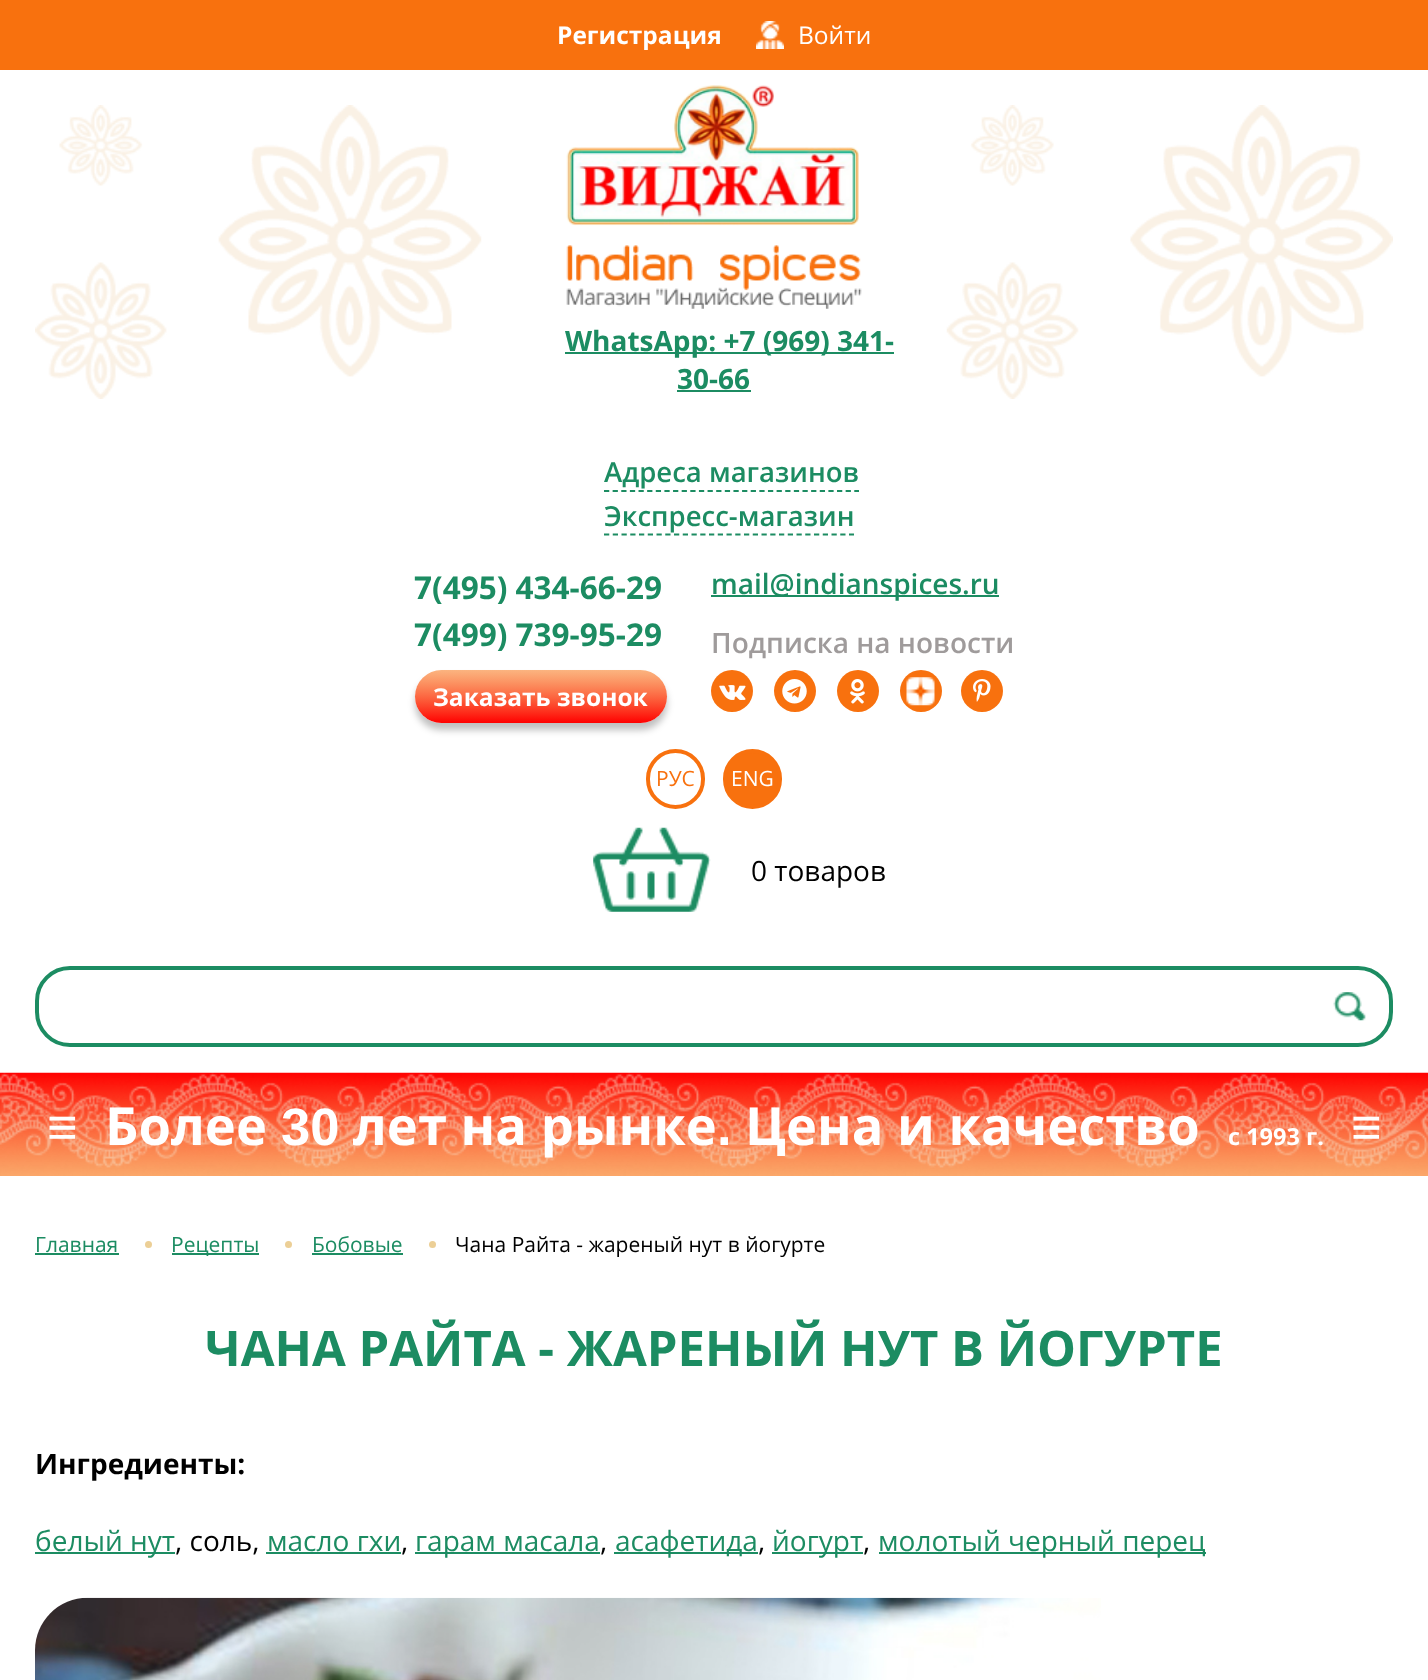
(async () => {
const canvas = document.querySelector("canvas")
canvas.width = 1428
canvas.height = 1680
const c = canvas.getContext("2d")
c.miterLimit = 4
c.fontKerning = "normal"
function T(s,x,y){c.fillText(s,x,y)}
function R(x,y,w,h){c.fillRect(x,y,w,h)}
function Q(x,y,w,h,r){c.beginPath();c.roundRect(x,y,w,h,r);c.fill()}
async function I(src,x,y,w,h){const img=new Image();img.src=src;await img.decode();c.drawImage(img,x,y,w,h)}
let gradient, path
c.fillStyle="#fff"
R(0,0,1428,1680)
c.fillStyle="#f8710e"
R(0,0,1428,70)
c.font="bold 24.5px Open Sans"
c.fillStyle="#fff"
T("Регистрация",557,44)
await I("1.png",756,21,28,28)
c.font="24.5px Open Sans"
T("Войти",798,44)
await I("2.png",35,105,447,294)
await I("3.png",946,105,447,294)
await I("4.png",566,85,293,141)
await I("5.png",566,245,296,64)
c.fillStyle="#1c8c62"
R(565,352,329,2)
c.font="bold 28px Open Sans"
T("WhatsApp: +7 (969) 341-",565,351)
T("30-66",677,389)
R(677,390,74,2)
c.font="600 27.5px Open Sans"
T("Адреса магазинов",604,482)
path = new Path2D("M604 491h255")
c.strokeStyle="#1c8c62"
c.lineWidth=1.8
c.setLineDash([5.25,3.38])
c.stroke(path)
T("Экспресс-магазин",604,526)
path = new Path2D("M604 534.5h250")
c.setLineDash([5.25,3.5])
c.stroke(path)
c.font="bold 31.5px Open Sans"
T("7(495) 434-66-29",414,599)
T("7(499) 739-95-29",414,646)
c.save()
path = new Path2D("M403 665h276v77h-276zm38.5 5h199c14.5 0 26.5 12 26.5 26.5c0 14.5-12 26.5-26.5 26.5h-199c-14.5 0-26.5-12-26.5-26.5c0-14.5 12-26.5 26.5-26.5z")
c.clip(path,"evenodd")
c.fillStyle="#00000040"
c.filter="blur(3.5px)"
c.beginPath()
c.roundRect(415,677,252,53,26.5)
c.fill()
c.filter="none"
c.restore()
gradient = c.createLinearGradient(541,670,541,723)
gradient.addColorStop(0,"#f8710e87")
gradient.addColorStop(1,"#f00")
c.fillStyle = gradient
Q(415,670,252,53,26.5)
c.font="bold 24.5px Open Sans"
c.fillStyle="#fff"
T("Заказать звонок",433,706)
c.fillStyle="#1c8c62"
R(711,595,288,2)
c.font="600 28px Open Sans"
T("mail@indianspices.ru",711,594)
c.fillStyle="#9f9b9b"
T("Подписка на новости",711,653)
c.fillStyle="#f8710e"
c.beginPath()
c.arc(732,691,21,0,7)
c.fill()
await I("6.png",719,685,27,15)
c.beginPath()
c.arc(795,691,21,0,7)
c.fill()
await I("7.png",782,679,25,25)
c.beginPath()
c.arc(858,691,21,0,7)
c.fill()
await I("8.png",850,679,15,25)
c.beginPath()
c.arc(921,691,21,0,7)
c.fill()
await I("9.png",906,677,29,29)
c.beginPath()
c.arc(982,691,21,0,7)
c.fill()
await I("10.png",973,679,18,23)
c.beginPath()
c.roundRect(648,751,55,56,27.5)
c.strokeStyle="#f8710e"
c.lineWidth=4
c.setLineDash([])
c.stroke()
c.font="21px Open Sans"
T("РУС",656,786)
c.beginPath()
c.roundRect(725,751,55,56,27.5)
c.fill()
c.stroke()
c.fillStyle="#fff"
T("ENG",731,786)
await I("11.png",593,827,118,85)
c.font="28px Open Sans"
c.fillStyle="#000"
T("0 товаров",751,881)
c.beginPath()
c.roundRect(37,968,1354,77,33)
c.strokeStyle="#1c8c62"
c.stroke()
await I("12.png",1333,992,33,29)
await I("13.png",0,1072,1428,104)
c.font="bold 52.5px Liberation Sans"
c.fillStyle="#fff"
T("≡",47,1145)
c.font="bold 52.5px Open Sans"
T("Более",105,1145)
c.font="bold 52.5px Liberation Sans"
T("30",281,1145)
c.font="bold 52.5px Open Sans"
T("лет на рынке",353,1145)
c.font="bold 52.5px Liberation Sans"
T(".",717,1145)
c.font="bold 52.5px Open Sans"
T("Цена и качество",745,1145)
c.font="bold 23.5px Open Sans"
T("с 1993 г.",1228,1145)
c.font="bold 52.5px Liberation Sans"
T("≡",1351,1145)
c.font="21px Open Sans"
c.fillStyle="#1c8c62"
T("Главная",35,1252)
R(35,1253,84,2)
c.fillStyle="#eccf96"
c.beginPath()
c.arc(148.5,1244.5,3.5,0,7)
c.fill()
c.fillStyle="#1c8c62"
R(172,1253,87,2)
T("Рецепты",171,1252)
c.fillStyle="#eccf96"
c.beginPath()
c.arc(288.5,1244.5,3.5,0,7)
c.fill()
c.fillStyle="#1c8c62"
T("Бобовые",312,1252)
R(312,1253,91,2)
c.fillStyle="#eccf96"
c.beginPath()
c.arc(432.5,1244.5,3.5,0,7)
c.fill()
c.fillStyle="#000"
T("Чана Райта - жареный нут в йогурте",455,1252)
c.font="bold 49px Open Sans"
c.fillStyle="#1c8c62"
T("ЧАНА РАЙТА - ЖАРЕНЫЙ НУТ В ЙОГУРТЕ",205,1366)
c.font="bold 28px Open Sans"
c.fillStyle="#000"
T("Ингредиенты:",35,1474)
c.fillStyle="#1c8c62"
R(35,1552,140,2)
c.font="28px Open Sans"
T("белый нут",35,1551)
c.fillStyle="#000"
T(", соль,",175,1551)
c.fillStyle="#1c8c62"
T("масло гхи",267,1551)
c.fillStyle="#000"
T(",",401,1551)
c.fillStyle="#1c8c62"
R(266,1552,135,2)
R(415,1552,185,2)
T("гарам масала",415,1551)
c.fillStyle="#000"
T(",",600,1551)
c.fillStyle="#1c8c62"
R(614,1552,144,2)
T("асафетида",615,1551)
c.fillStyle="#000"
T(",",758,1551)
c.fillStyle="#1c8c62"
R(772,1552,91,2)
T("йогурт",772,1551)
c.fillStyle="#000"
T(",",863,1551)
c.fillStyle="#1c8c62"
R(879,1552,327,2)
T("молотый черный перец",878,1551)
await I("14.png",35,1597,1066,83)
})()
